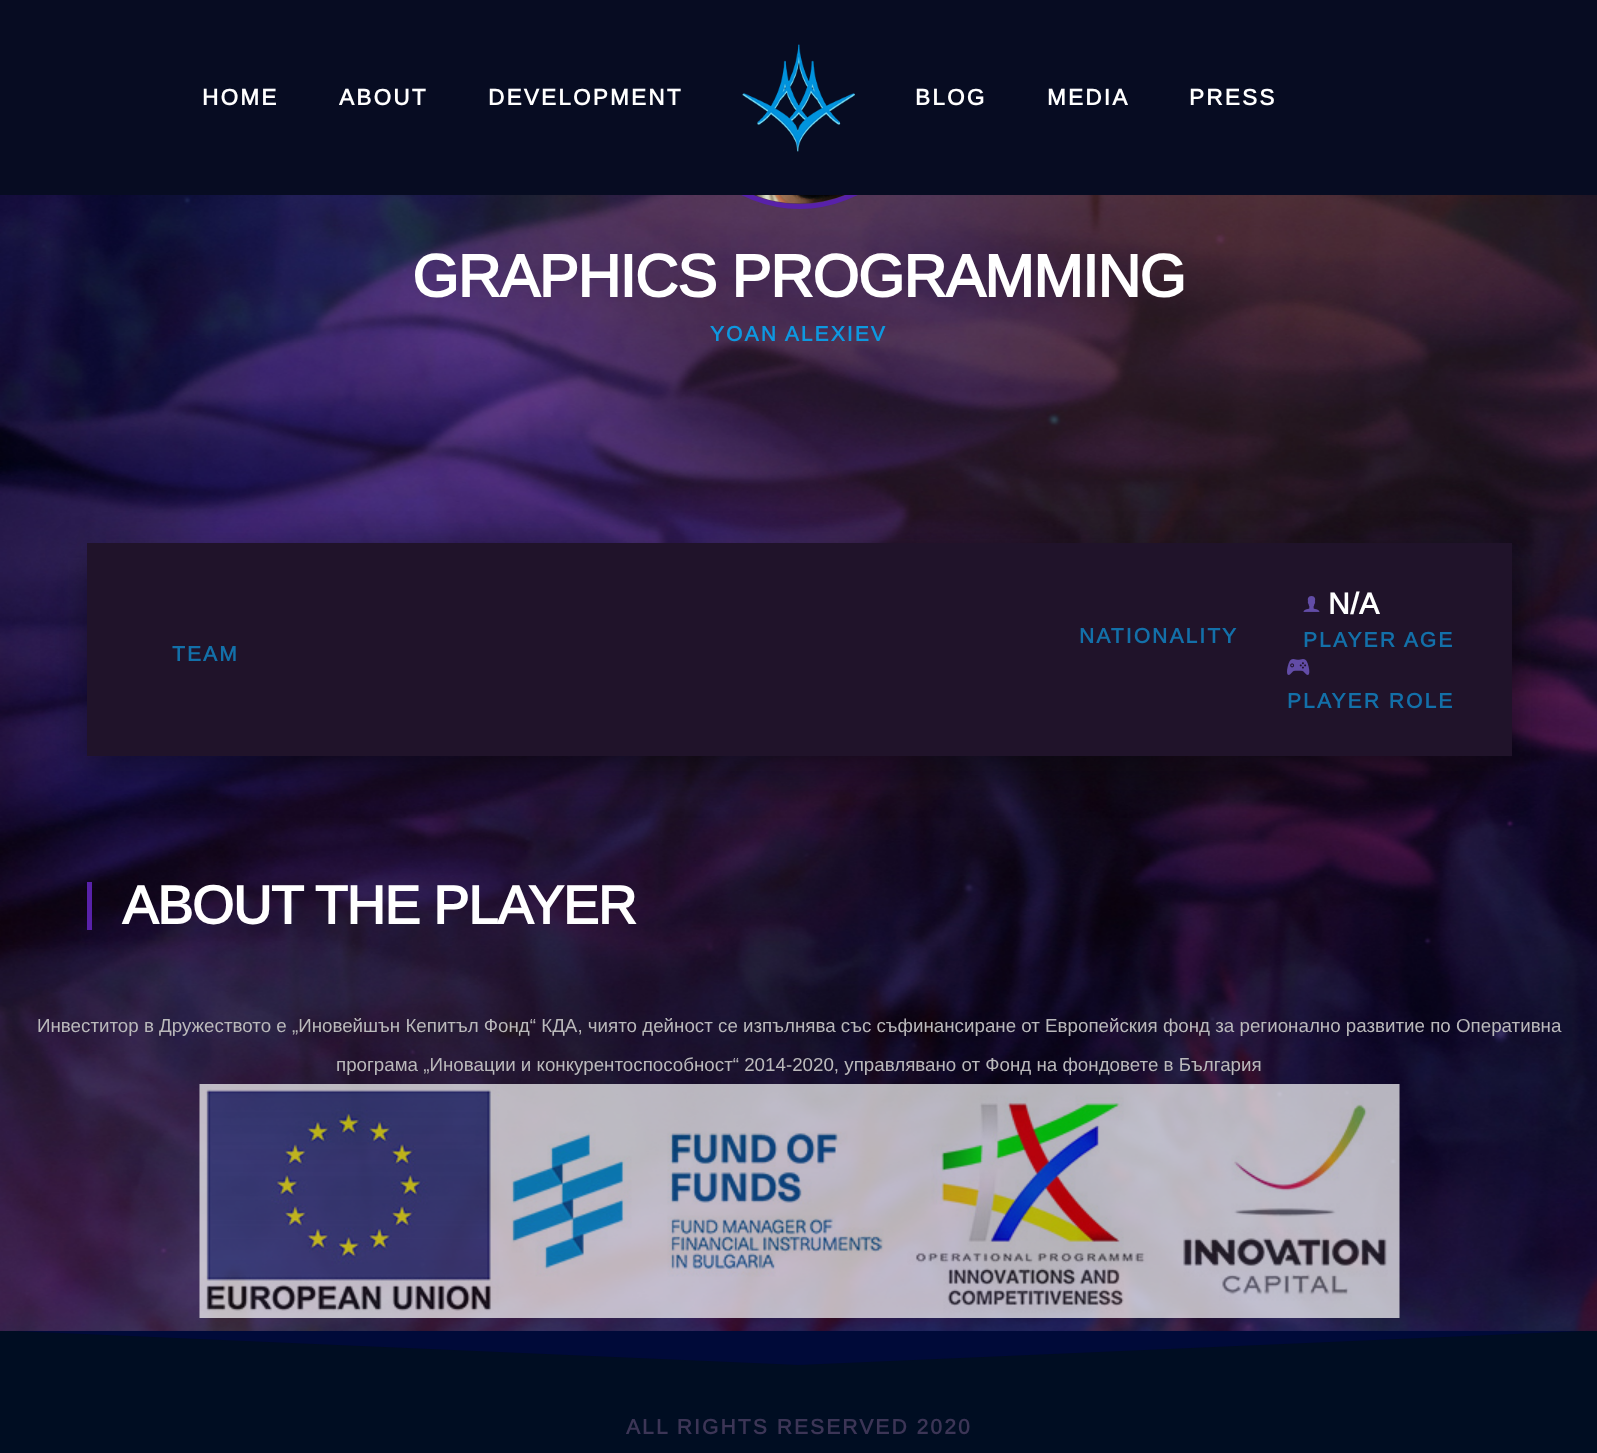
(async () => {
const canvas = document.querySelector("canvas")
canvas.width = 1597
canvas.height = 1453
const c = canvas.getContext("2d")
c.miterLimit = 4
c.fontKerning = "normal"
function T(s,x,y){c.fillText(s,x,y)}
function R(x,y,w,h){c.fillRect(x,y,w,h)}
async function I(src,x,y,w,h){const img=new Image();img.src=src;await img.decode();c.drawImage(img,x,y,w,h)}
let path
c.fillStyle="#fff"
R(0,0,1597,1453)
await I("6.png",0,195,1597,1136)
c.beginPath()
c.arc(799.5,81.5,125,0,7)
c.strokeStyle="#5821a9"
c.lineWidth=5
c.stroke()
c.fillStyle="#070c22"
R(0,0,1597,195)
c.letterSpacing="2.25px"
c.font="bold 22.5px Arimo"
c.fillStyle="#fff"
T("HOME",202,105)
T("ABOUT",339,105)
T("DEVELOPMENT",488,105)
await I("1.png",742,44,113,108)
T("BLOG",915,105)
T("MEDIA",1047,105)
T("PRESS",1189,105)
await I("2.png",754,195,91,9)
c.letterSpacing="-1.2px"
c.font="bold 60px Arimo"
T("GRAPHICS PROGRAMMING",412,297)
c.letterSpacing="2.1px"
c.font="bold 21px Arimo"
c.fillStyle="#0e98e0"
T("YOAN ALEXIEV",710,341)
c.fillStyle="#06050780"
c.filter="blur(20px)"
c.beginPath()
c.rect(87,558,1425,213)
c.fill()
c.filter="none"
c.fillStyle="#20132a"
R(87,543,1425,213)
c.fillStyle="#1370a9"
T("TEAM",172,661)
T("NATIONALITY",1079,643)
await I("3.png",1303,596,17,16)
c.letterSpacing="0.5px"
c.font="bold 30px Arimo"
c.fillStyle="#fff"
T("N/A",1328,614)
c.letterSpacing="2.1px"
c.font="bold 21px Arimo"
c.fillStyle="#1370a9"
T("PLAYER AGE",1303,647)
await I("4.png",1287,659,23,16)
T("PLAYER ROLE",1287,708)
c.fillStyle="#5821a9"
R(87,882,5,48)
c.letterSpacing="-1.1px"
c.font="bold 54px Arimo"
c.fillStyle="#fff"
T("ABOUT THE PLAYER",122,924)
c.letterSpacing="0px"
c.font="18.75px Arimo"
c.fillStyle="#bab9bb"
T("Инвеститор в Дружеството е „Иновейшън Кепитъл Фонд“ КДА, чиято дейност се изпълнява със съфинансиране от Европейския фонд за регионално развитие по Оперативна",37,1032)
T("програма „Иновации и конкурентоспособност“ 2014-2020, управлявано от Фонд на фондовете в България",336,1071)
await I("5.png",199,1084,1201,234)
c.fillStyle="#000d22"
R(0,1331,1597,122)
c.fillStyle="#000a39"
path = new Path2D("M1584 1331l-785 34l-785-34z")
c.fill(path)
c.letterSpacing="2.1px"
c.font="bold 21px Arimo"
c.fillStyle="#3c3556"
T("ALL RIGHTS RESERVED 2020",626,1434)
})()
